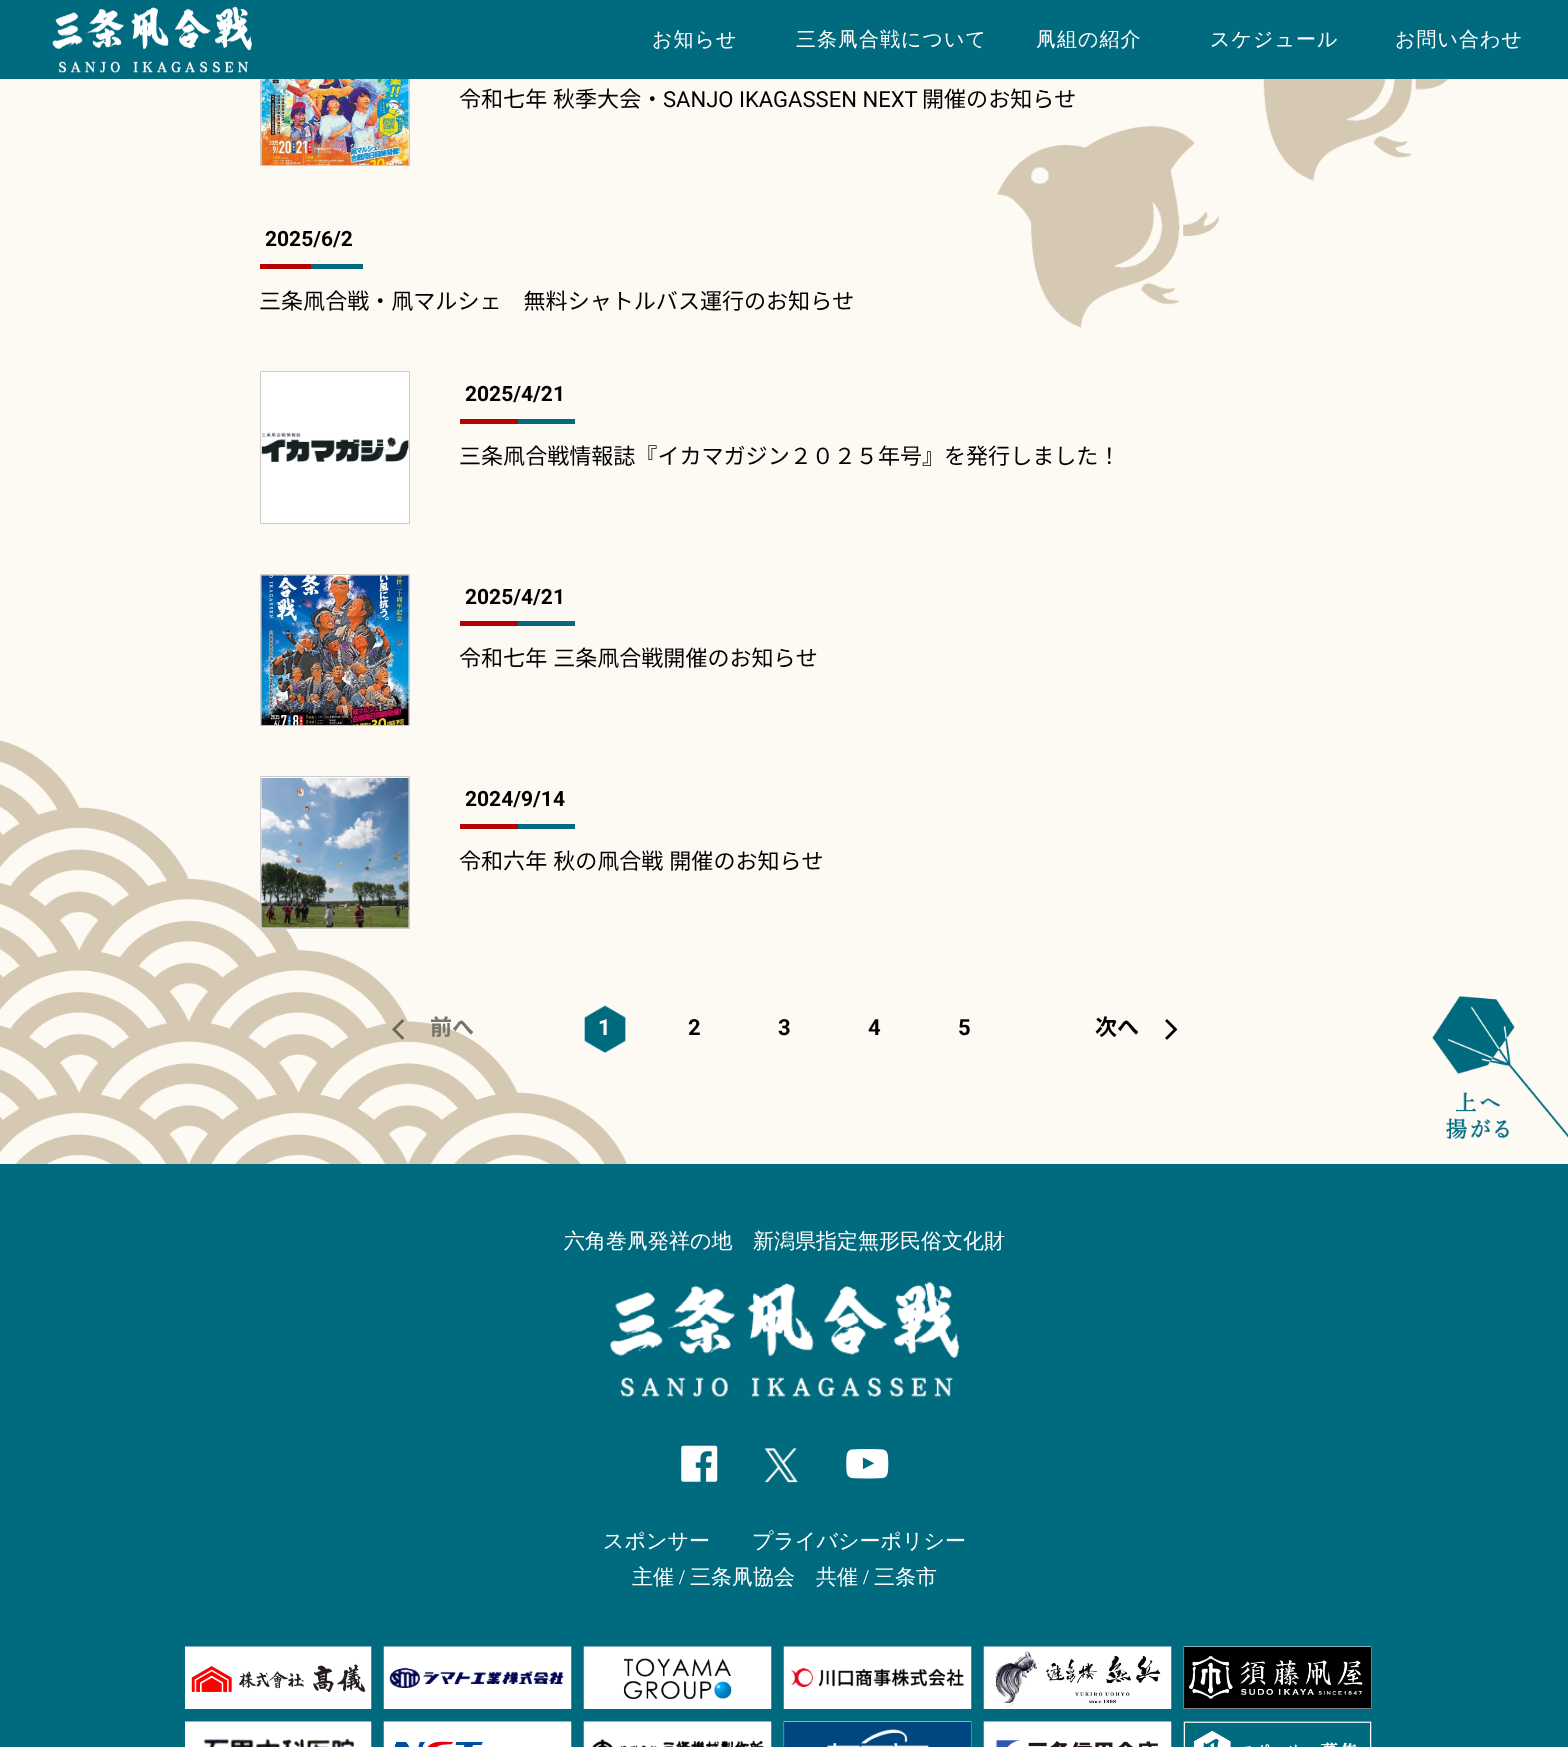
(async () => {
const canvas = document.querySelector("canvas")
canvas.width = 1568
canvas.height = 1747
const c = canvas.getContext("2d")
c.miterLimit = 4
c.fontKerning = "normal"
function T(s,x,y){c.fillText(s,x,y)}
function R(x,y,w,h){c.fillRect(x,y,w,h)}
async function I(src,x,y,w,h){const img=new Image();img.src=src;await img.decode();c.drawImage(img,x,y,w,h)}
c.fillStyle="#006a7f"
R(0,0,1568,1747)
c.fillStyle="#fdfaf3"
R(0,79,1568,1085)
c.fillStyle="#fff"
R(261,79,148,86)
c.strokeStyle="#ccc"
c.strokeRect(260.5,14.5,149,151)
c.fillStyle="#006a7f"
R(260,14,150,65)
await I("1.png",52,6,200,67)
c.letterSpacing="1px"
c.font="500 20px WenQuanYi Zen Hei"
c.fillStyle="#fff"
T("お知らせ",652,46)
T("三条凧合戦について",796,46)
T("凧組の紹介",1036,46)
T("スケジュール",1210,46)
T("お問い合わせ",1395,46)
await I("2.png",261,79,148,87)
c.letterSpacing="0px"
c.font="22.05px Noto Sans CJK JP"
c.fillStyle="#000"
T("令和七年",459,107)
T("秋季大会・",553,107)
c.font="22.05px Roboto"
T("SANJO IKAGASSEN NEXT",663,107)
await I("9.png",997,79,452,249)
c.font="22.05px Noto Sans CJK JP"
T("開催のお知らせ",922,107)
c.fillStyle="#006a7f"
R(311,264,52,5)
c.font="bold 21px Roboto"
c.fillStyle="#000"
T("2025/6/2",265,246)
c.fillStyle="#b60101"
R(260,264,51,5)
c.font="22.05px Noto Sans CJK JP"
c.fillStyle="#000"
T("三条凧合戦・凧マルシェ　無料シャトルバス運行のお知らせ",259,309)
c.fillStyle="#fff"
c.beginPath()
c.rect(260.5,371.5,149,152)
c.fill()
c.stroke()
await I("3.png",261,432,148,30)
c.fillStyle="#006a7f"
R(518,419,57,5)
c.font="bold 21px Roboto"
c.fillStyle="#000"
T("2025/4/21",465,401)
c.fillStyle="#b60101"
R(460,419,58,5)
c.font="22.05px Noto Sans CJK JP"
c.fillStyle="#000"
T("三条凧合戦情報誌『イカマガジン２０２５年号』を発行しました！",459,464)
c.fillStyle="#fff"
c.beginPath()
c.rect(260.5,574.5,149,151)
c.fill()
c.stroke()
await I("4.png",261,575,148,151)
c.fillStyle="#006a7f"
R(518,621,57,5)
c.font="bold 21px Roboto"
c.fillStyle="#000"
T("2025/4/21",465,604)
c.fillStyle="#b60101"
R(460,621,58,5)
c.wordSpacing="1px"
c.font="22.05px Noto Sans CJK JP"
c.fillStyle="#000"
T("令和七年 三条凧合戦開催のお知らせ",459,666)
await I("10.png",0,740,627,424)
c.fillStyle="#fff"
c.beginPath()
c.rect(260.5,776.5,149,152)
c.fill()
c.stroke()
await I("5.png",261,777,148,151)
c.fillStyle="#006a7f"
R(518,824,57,5)
c.wordSpacing="0px"
c.font="bold 21px Roboto"
c.fillStyle="#000"
T("2024/9/14",465,806)
c.fillStyle="#b60101"
R(460,824,58,5)
c.wordSpacing="1px"
c.font="22.05px Noto Sans CJK JP"
c.fillStyle="#000"
T("令和六年 秋の凧合戦 開催のお知らせ",459,869)
await I("6.png",392,1019,12,21)
c.wordSpacing="0px"
c.font="bold 22.05px Noto Sans CJK JP"
c.fillStyle="#77746d"
T("前へ",430,1035)
await I("7.png",584,1004,42,50)
c.font="bold 22.05px Roboto"
c.fillStyle="#fff"
T("1",598,1035)
c.fillStyle="#000"
T("2",688,1035)
T("3",778,1035)
T("4",868,1035)
T("5",958,1035)
c.font="bold 22.05px Noto Sans CJK JP"
T("次へ",1095,1035)
await I("8.png",1165,1019,13,21)
await I("11.png",1432,996,136,143)
c.font="500 21px WenQuanYi Zen Hei"
c.fillStyle="#fff"
T("六角巻凧発祥の地",564,1248)
T("新潟県指定無形民俗文化財",753,1248)
await I("12.png",610,1281,349,116)
await I("13.png",681,1445,37,37)
await I("14.png",764,1448,35,35)
await I("15.png",846,1449,43,30)
T("スポンサー",603,1548)
T("プライバシーポリシー",752,1548)
T("主催",632,1584)
c.font="21px Liberation Serif"
T("/",679,1584)
c.font="500 21px WenQuanYi Zen Hei"
T("三条凧協会　共催",690,1584)
c.font="21px Liberation Serif"
T("/",863,1584)
c.font="500 21px WenQuanYi Zen Hei"
T("三条市",874,1584)
await I("16.png",185,1646,187,63)
await I("17.png",383,1646,189,63)
await I("18.png",583,1646,189,63)
await I("19.png",783,1646,189,63)
await I("20.png",983,1646,189,63)
await I("21.png",1183,1646,189,63)
await I("22.png",185,1721,187,26)
await I("23.png",383,1721,189,26)
await I("24.png",583,1721,189,26)
await I("25.png",783,1721,189,26)
await I("26.png",983,1721,189,26)
await I("27.png",1183,1721,189,26)
})()
